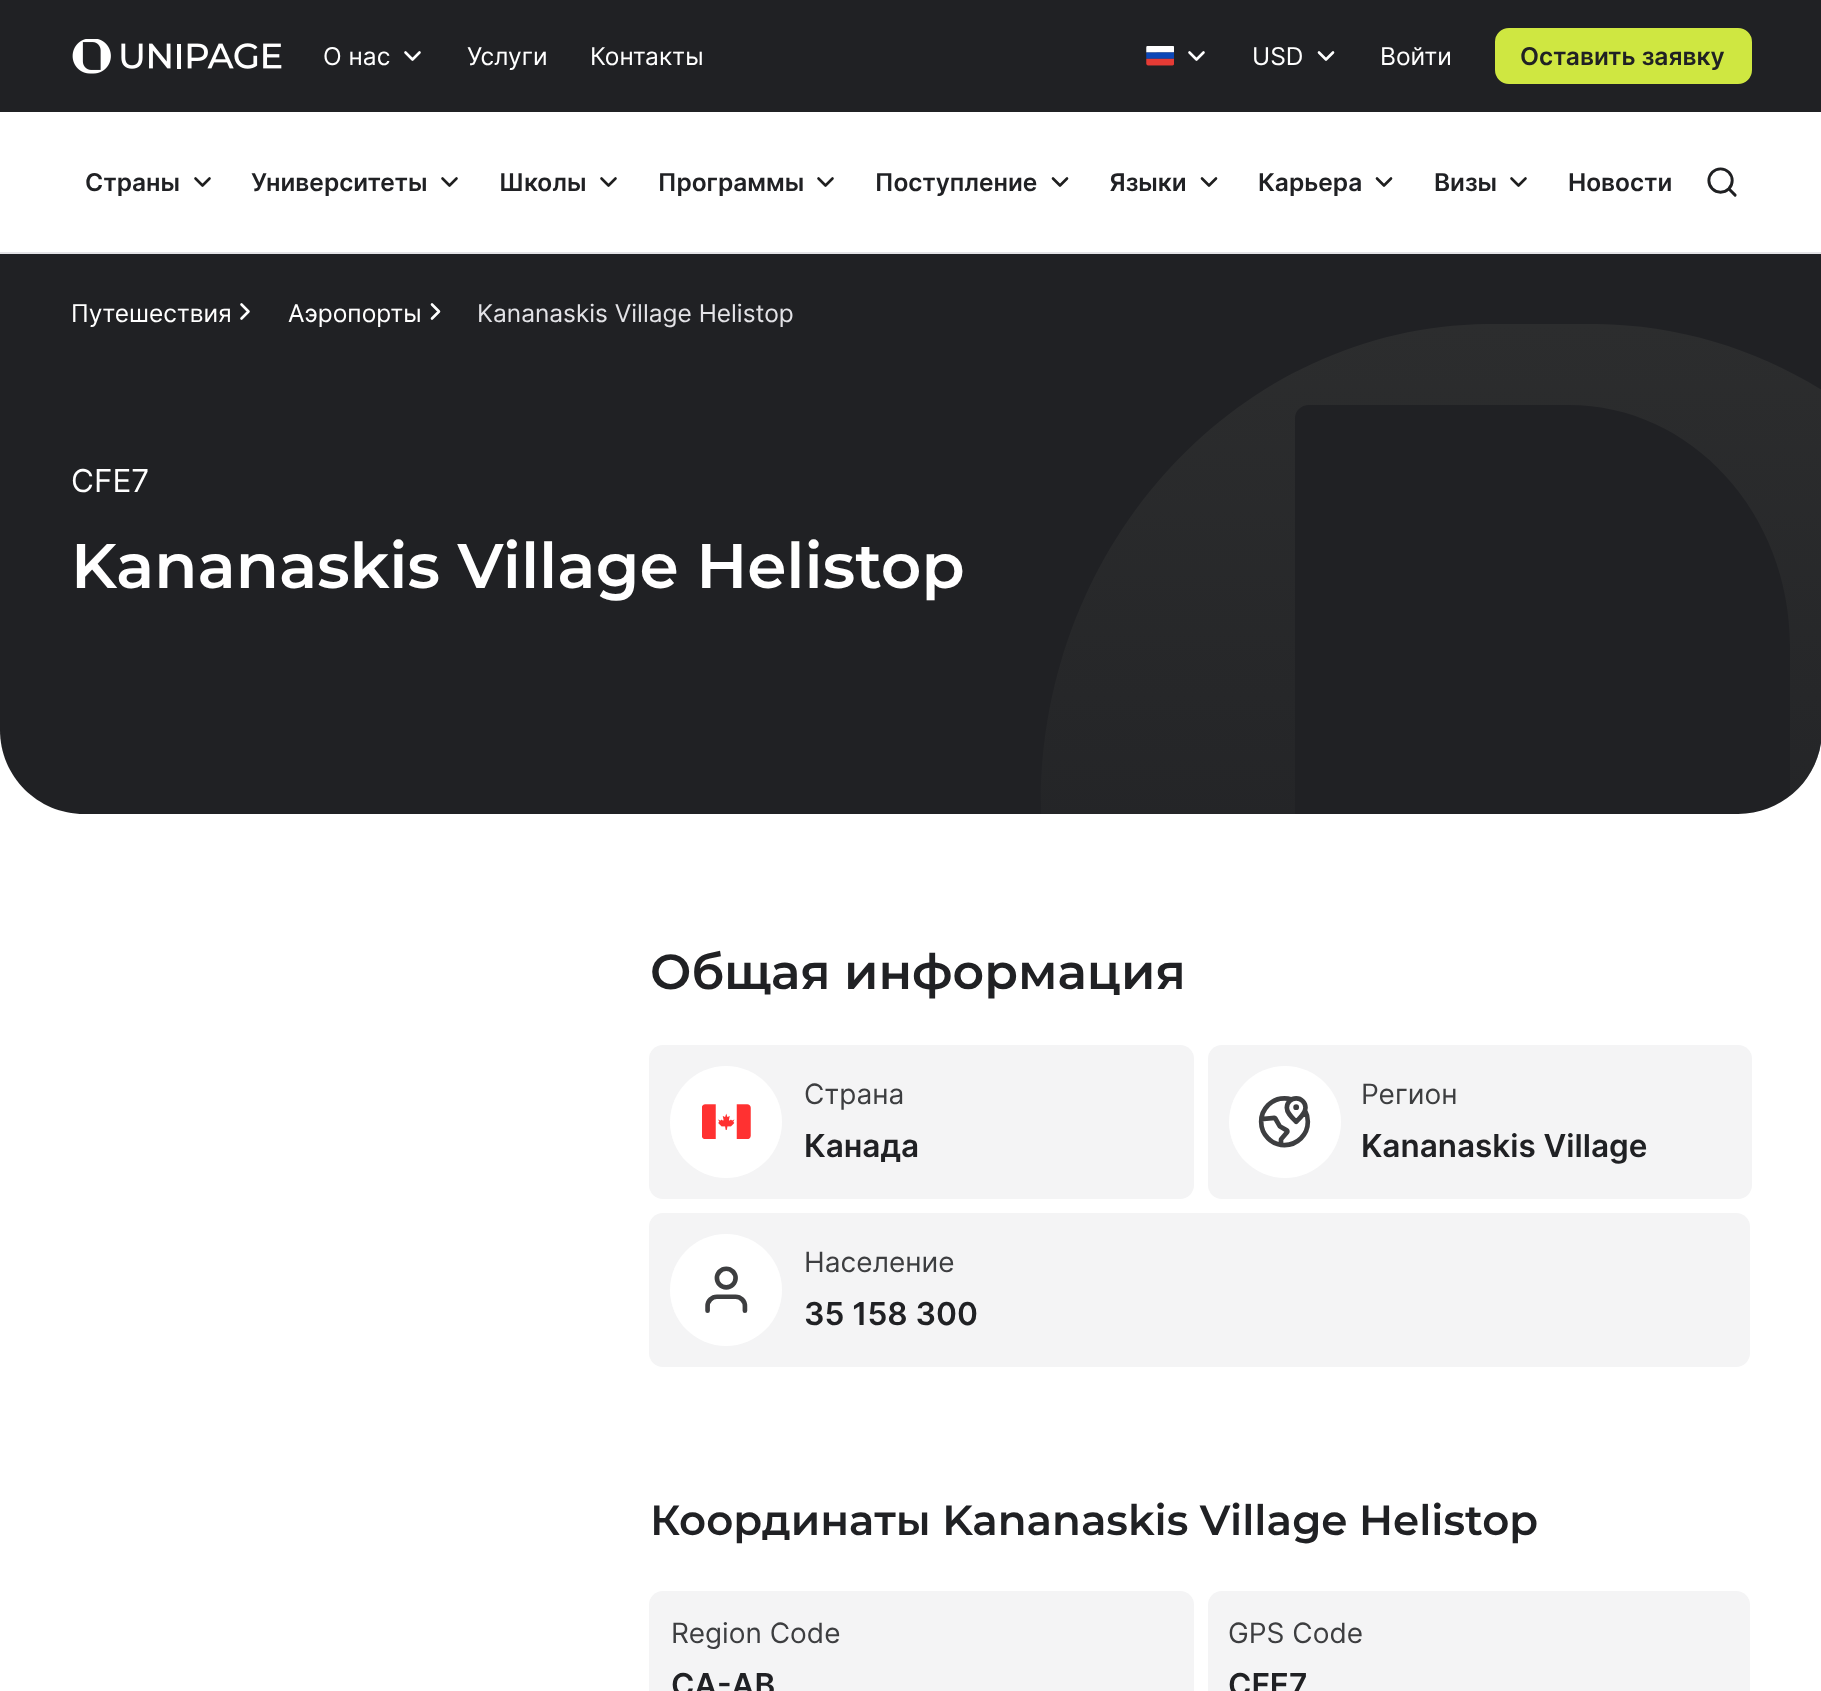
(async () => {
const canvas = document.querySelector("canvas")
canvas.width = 1821
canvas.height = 1691
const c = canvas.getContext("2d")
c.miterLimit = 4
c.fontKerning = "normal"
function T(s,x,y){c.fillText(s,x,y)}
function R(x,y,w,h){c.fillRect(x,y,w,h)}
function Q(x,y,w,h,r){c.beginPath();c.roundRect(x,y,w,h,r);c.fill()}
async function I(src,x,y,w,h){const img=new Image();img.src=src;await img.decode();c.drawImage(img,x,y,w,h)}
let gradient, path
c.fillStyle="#fff"
R(0,0,1821,1691)
c.fillStyle="#202124"
R(0,0,1821,112)
await I("1.png",72,39,210,35)
c.font="24.5px Inter"
c.fillStyle="#fff"
T("О нас",323,65)
path = new Path2D("M405.5 52.5l7 7l7-7")
c.strokeStyle="#fff"
c.lineWidth=2.6
c.lineCap="round"
c.lineJoin="round"
c.stroke(path)
T("Услуги",467,65)
T("Контакты",590,65)
await I("2.png",1146,46,28,20)
path = new Path2D("M1189.5 52.5l7 7l7-7")
c.stroke(path)
T("USD",1252,65)
path = new Path2D("M1319 52.5l7 7l7-7")
c.stroke(path)
T("Войти",1380,65)
c.fillStyle="#cfe741"
c.beginPath()
c.roundRect(1496,29,255,54,13)
c.fill()
c.strokeStyle="#cfe741"
c.lineWidth=2
c.lineJoin="miter"
c.stroke()
c.font="600 24.5px Inter"
c.fillStyle="#202124"
T("Оставить заявку",1520,65)
c.fillStyle="#e3e3e7"
R(0,252,1821,2)
c.fillStyle="#202124"
T("Страны",85,191)
path = new Path2D("M195.5 178.5l7 7l7-7")
c.strokeStyle="#1f1f1f"
c.lineWidth=2.6
c.lineJoin="round"
c.stroke(path)
T("Университеты",251,191)
path = new Path2D("M442.5 178.5l7 7l7-7")
c.stroke(path)
T("Школы",499,191)
path = new Path2D("M601.5 178.5l7 7l7-7")
c.stroke(path)
T("Программы",658,191)
path = new Path2D("M818.5 178.5l7 7l7-7")
c.stroke(path)
T("Поступление",875,191)
path = new Path2D("M1053 178.5l7 7l7-7")
c.stroke(path)
T("Языки",1109,191)
path = new Path2D("M1202 178.5l7 7l7-7")
c.stroke(path)
T("Карьера",1258,191)
path = new Path2D("M1377 178.5l7 7l7-7")
c.stroke(path)
T("Визы",1434,191)
path = new Path2D("M1511.5 178.5l7 7l7-7")
c.stroke(path)
T("Новости",1568,191)
await I("3.png",1707,167,30,30)
path = new Path2D("M0 254h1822v476c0 46.5-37.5 84-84 84h-1654c-46.5 0-84-37.5-84-84z")
c.fill(path)
gradient = c.createLinearGradient(1542,324,1542,1227)
gradient.addColorStop(0,"#2c2d2e")
gradient.addColorStop(.78,"#2c2d2e0d")
gradient.addColorStop(1,"#2c2d2e00")
c.fillStyle = gradient
path = new Path2D("M1597 324h-110c-249 3-449 221-446 486v4h254v-396c0-7 6-13 14-13h260c122 0 221 108 221 241v150c19-15 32-39 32-66v-340c-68-42-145-65-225-66z")
c.fill(path)
c.font="24.5px Inter"
c.fillStyle="#fff"
T("Путешествия",71,322)
path = new Path2D("M241.5 318.5l7-7l-7-7")
c.strokeStyle="#fff"
c.stroke(path)
T("Аэропорты",288,322)
path = new Path2D("M432 318.5l7-7l-7-7")
c.stroke(path)
c.fillStyle="#e3e3e7"
T("Kananaskis Village Helistop",477,322)
c.font="31.5px Inter"
c.fillStyle="#fff"
T("CFE7",71,492)
c.font="600 63px Montserrat"
T("Kananaskis Village Helistop",71,588)
c.font="600 49px Montserrat"
c.fillStyle="#202124"
T("Общая информация",650,989)
c.fillStyle="#f4f4f5"
Q(649,1045,545,154,14)
c.fillStyle="#fff"
c.beginPath()
c.arc(726,1122,56,0,7)
c.fill()
await I("4.png",702,1104,49,35)
c.font="28px Inter"
c.fillStyle="#3d3e40"
T("Страна",804,1104)
c.font="600 31.5px Inter"
c.fillStyle="#202124"
T("Канада",804,1157)
c.fillStyle="#f4f4f5"
Q(1208,1045,544,154,14)
c.fillStyle="#fff"
c.beginPath()
c.arc(1285,1122,56,0,7)
c.fill()
await I("5.png",1258,1096,53,52)
c.font="28px Inter"
c.fillStyle="#3d3e40"
T("Регион",1361,1104)
c.font="600 31.5px Inter"
c.fillStyle="#202124"
T("Kananaskis Village",1361,1157)
c.fillStyle="#f4f4f5"
Q(649,1213,1101,154,14)
c.fillStyle="#fff"
c.beginPath()
c.arc(726,1290,56,0,7)
c.fill()
await I("6.png",705,1266,43,47)
c.font="28px Inter"
c.fillStyle="#3d3e40"
T("Население",804,1272)
c.font="600 31.5px Inter"
c.fillStyle="#202124"
T("35 158 300",804,1325)
c.font="600 42px Montserrat"
T("Координаты Kananaskis Village Helistop",650,1535)
c.fillStyle="#f4f4f5"
Q(649,1591,545,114,14)
c.font="28px Inter"
c.fillStyle="#3d3e40"
T("Region Code",671,1643)
c.font="600 31.5px Inter"
c.fillStyle="#202124"
T("CA-AB",671,1696)
c.fillStyle="#f4f4f5"
Q(1208,1591,542,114,14)
c.font="28px Inter"
c.fillStyle="#3d3e40"
T("GPS Code",1228,1643)
c.font="600 31.5px Inter"
c.fillStyle="#202124"
T("CFE7",1228,1696)
})()
